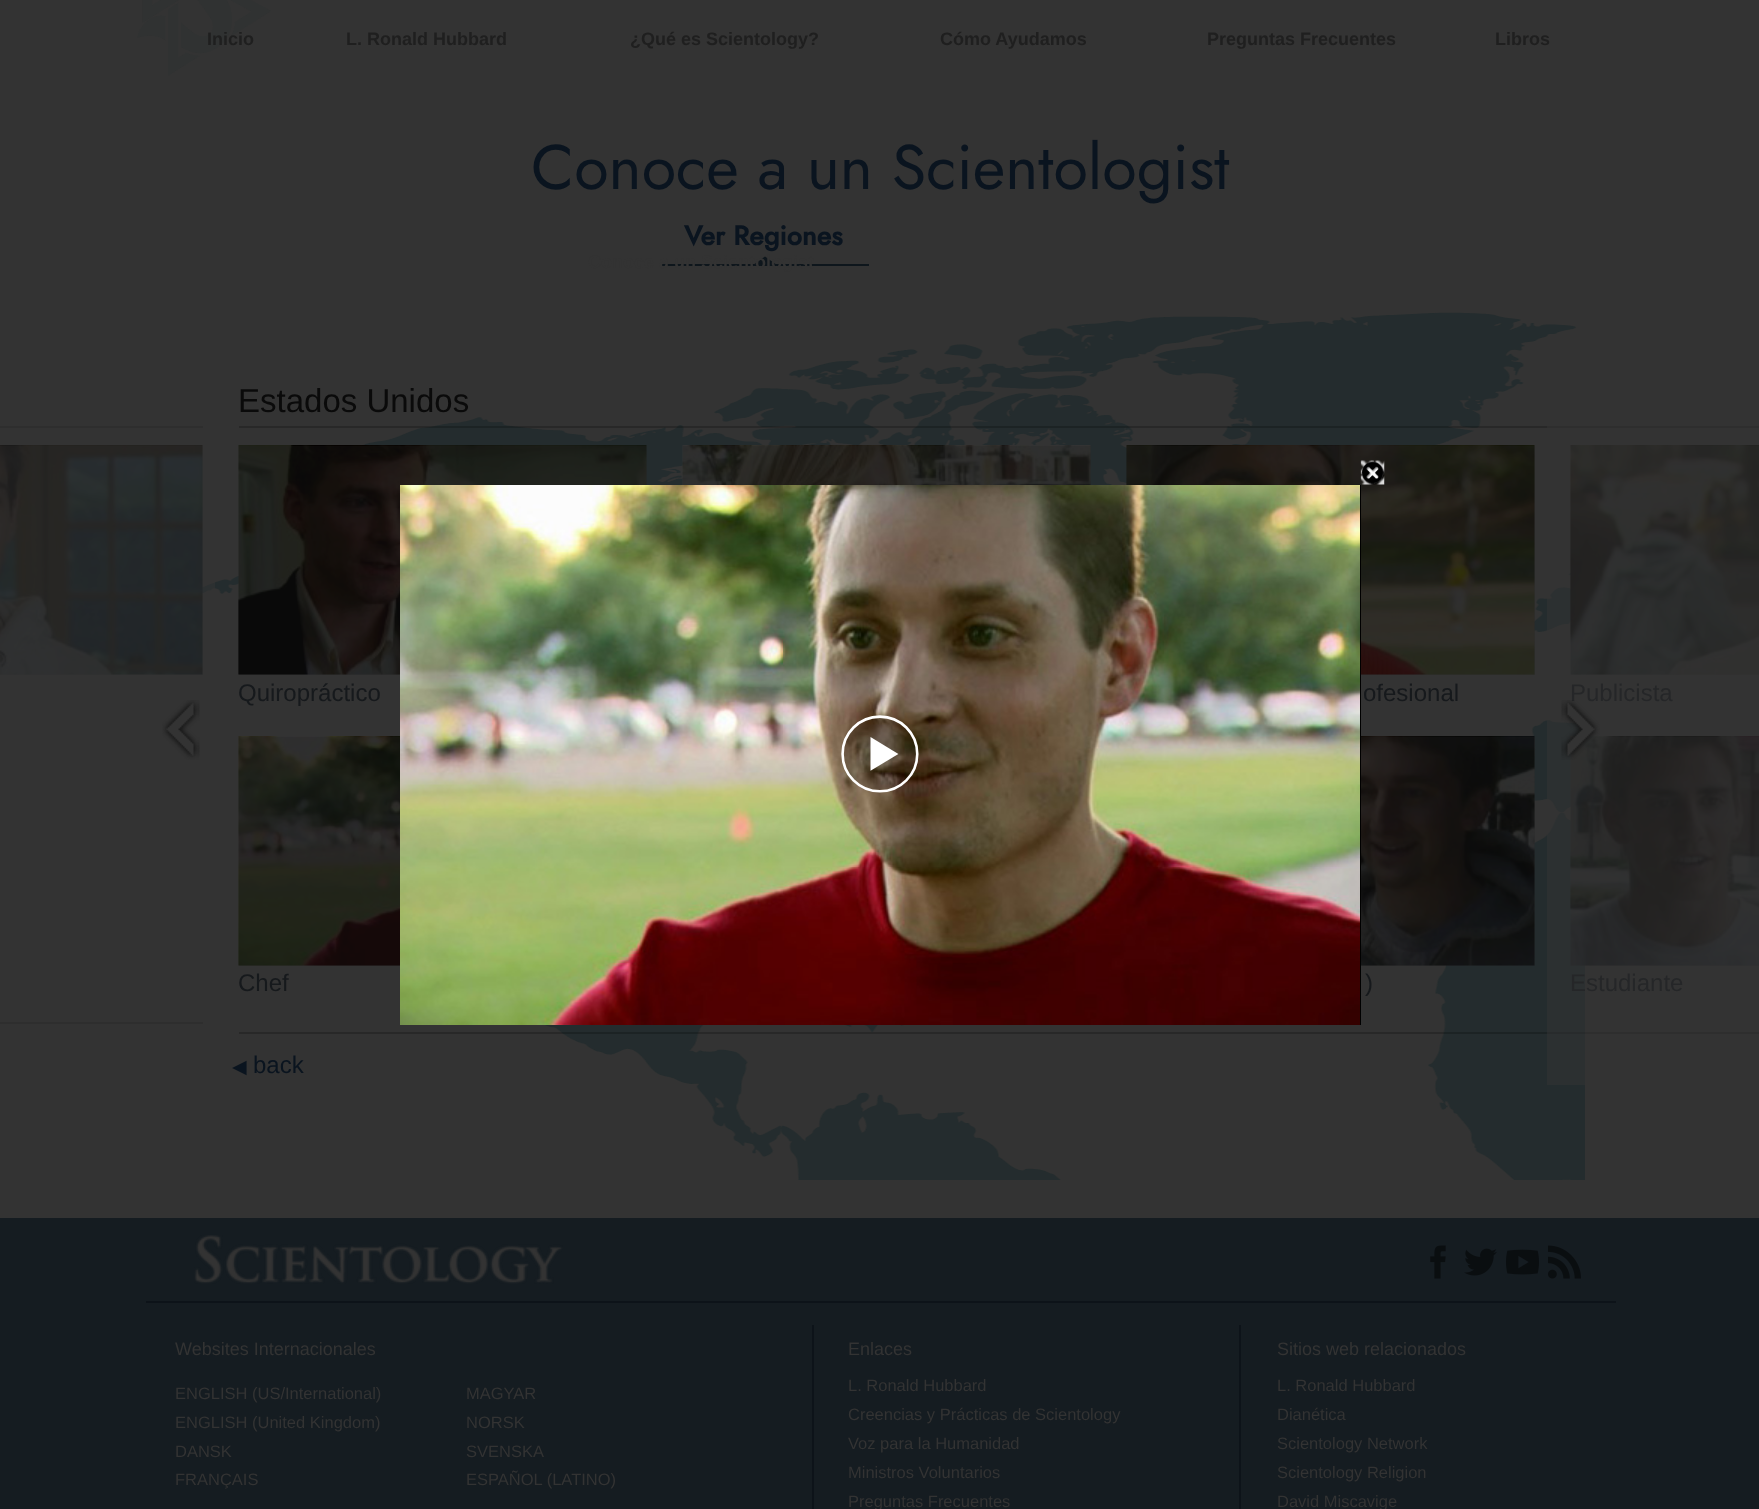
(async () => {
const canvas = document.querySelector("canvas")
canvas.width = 1759
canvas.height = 1509
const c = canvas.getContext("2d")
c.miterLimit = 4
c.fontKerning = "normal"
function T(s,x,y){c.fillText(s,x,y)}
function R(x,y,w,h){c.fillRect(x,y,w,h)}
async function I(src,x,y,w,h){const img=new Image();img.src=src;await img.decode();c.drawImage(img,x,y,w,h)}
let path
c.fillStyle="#333"
R(0,0,1759,1509)
await I("1.png",137,0,134,76)
c.font="bold 18px Liberation Sans"
c.fillStyle="#1f1f1f"
T("Inicio",207,45)
T("L. Ronald Hubbard",346,45)
T("¿Qué es Scientology?",630,45)
c.fillStyle="#0e161c"
R(662,264,207,2)
path = new Path2D("M775.5 264h-21l10.5-7.5z")
c.fill(path)
c.fillStyle="#333"
T("Conoce a un Scientologist",588,268)
c.fillStyle="#1f1f1f"
T("Cómo Ayudamos",940,45)
T("Preguntas Frecuentes",1207,45)
T("Libros",1495,45)
c.font="63px Jost"
c.fillStyle="#0a141f"
T("Conoce a un Scientologist",531,189)
c.font="bold 27px Jost"
T("Ver Regiones",684,245)
await I("2.png",202,312,1383,868)
c.fillStyle="#292929"
R(0,426,203,2)
await I("4.png",0,445,203,230)
c.fillStyle="#25252540"
R(0,446,203,229)
c.fillStyle="#292929"
R(0,1022,203,2)
c.fillStyle="#33333380"
R(0,426,215,598)
await I("3.png",162,700,38,60)
c.fillStyle="#00000033"
R(239,426,1520,2)
c.font="33px Liberation Sans"
c.fillStyle="#0a0a0a"
T("Estados Unidos",238,412)
await I("5.png",682,445,409,40)
c.fillStyle="#25252540"
R(683,446,408,39)
await I("6.png",238,445,409,230)
R(239,446,408,229)
c.font="24px Liberation Sans"
c.fillStyle="#16191c"
T("Quiropráctico",238,701)
await I("7.png",238,736,162,230)
c.fillStyle="#25252540"
R(239,737,161,229)
c.fillStyle="#16191c"
T("Chef",238,991)
await I("8.png",1126,445,409,230)
c.fillStyle="#25252540"
R(1127,446,408,229)
c.fillStyle="#16191c"
T("ofesional",1363,701)
await I("9.png",1361,736,174,230)
c.fillStyle="#25252540"
R(1361,737,174,229)
c.fillStyle="#16191c"
T(")",1365,991)
await I("10.png",1570,445,189,230)
c.fillStyle="#25252540"
R(1571,446,188,229)
c.fillStyle="#16191c"
T("Publicista",1570,701)
await I("11.png",1570,736,189,230)
c.fillStyle="#25252540"
R(1571,737,188,229)
c.fillStyle="#16191c"
T("Estudiante",1570,991)
c.fillStyle="#00000033"
R(239,1032,1520,2)
c.font="19px DejaVu Sans"
c.fillStyle="#0a141f"
T("◀",232,1073)
c.font="24px Liberation Sans"
T("back",253,1073)
c.fillStyle="#33333380"
R(1547,426,212,659)
await I("12.png",1561,700,39,60)
await I("13.png",1360,460,25,25)
await I("14.png",1361,461,24,24)
await I("15.png",400,485,1,540)
c.fillStyle="#000"
R(1360,485,1,540)
await I("16.png",401,485,959,540)
await I("17.png",841,715,78,78)
c.fillStyle="#151c21"
R(0,1218,1759,291)
await I("18.png",194,1235,369,49)
await I("19.png",1430,1245,16,34)
await I("20.png",1464,1248,33,28)
await I("21.png",1506,1249,33,26)
await I("22.png",1548,1245,33,34)
c.fillStyle="#0d1319"
R(146,1301,1470,2)
c.font="18px Liberation Sans"
c.fillStyle="#333"
T("Websites Internacionales",175,1355)
c.font="16.5px Liberation Sans"
T("ENGLISH (US/International)",175,1399)
T("ENGLISH (United Kingdom)",175,1428)
T("DANSK",175,1457)
T("FRANÇAIS",175,1485)
T("MAGYAR",466,1399)
T("NORSK",466,1428)
T("SVENSKA",466,1457)
T("ESPAÑOL (LATINO)",466,1485)
c.fillStyle="#0d1319"
R(812,1325,2,184)
c.font="18px Liberation Sans"
c.fillStyle="#333"
T("Enlaces",848,1355)
c.font="16.5px Liberation Sans"
T("L. Ronald Hubbard",848,1391)
T("Creencias y Prácticas de Scientology",848,1420)
T("Voz para la Humanidad",848,1449)
T("Ministros Voluntarios",848,1478)
T("Preguntas Frecuentes",848,1507)
c.fillStyle="#0d1319"
R(1239,1325,2,184)
c.font="18px Liberation Sans"
c.fillStyle="#333"
T("Sitios web relacionados",1277,1355)
c.font="16.5px Liberation Sans"
T("L. Ronald Hubbard",1277,1391)
T("Dianética",1277,1420)
T("Scientology Network",1277,1449)
T("Scientology Religion",1277,1478)
T("David Miscavige",1277,1507)
})()
